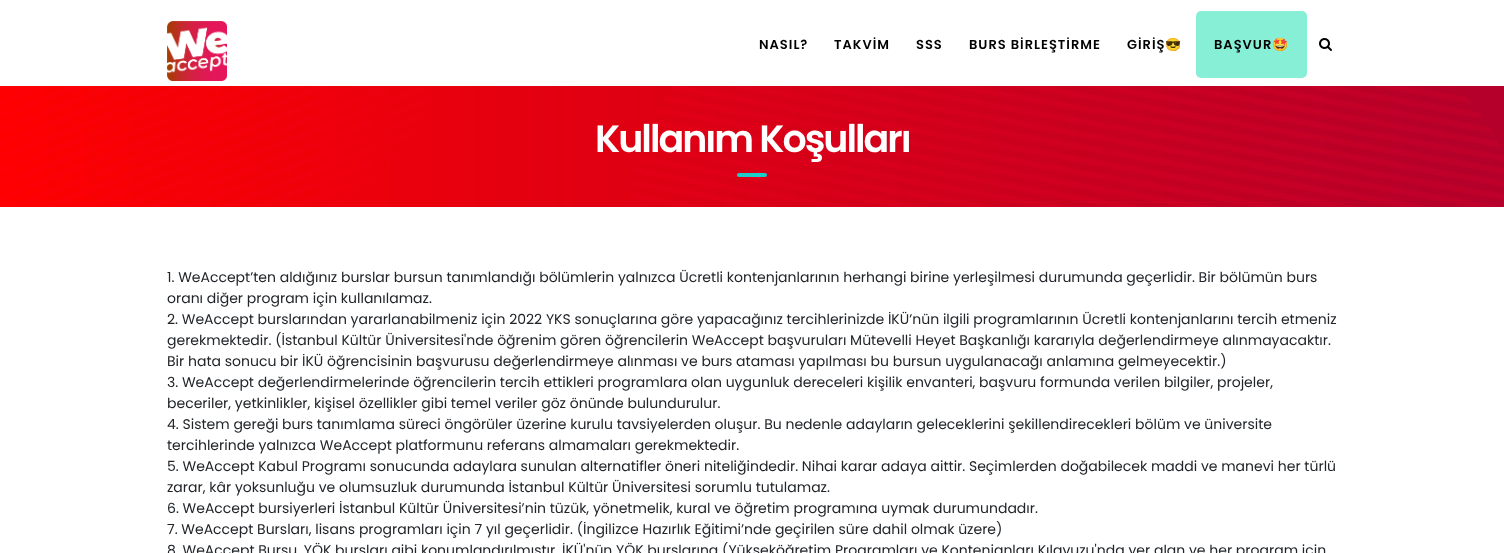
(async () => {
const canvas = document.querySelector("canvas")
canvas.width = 1504
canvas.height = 553
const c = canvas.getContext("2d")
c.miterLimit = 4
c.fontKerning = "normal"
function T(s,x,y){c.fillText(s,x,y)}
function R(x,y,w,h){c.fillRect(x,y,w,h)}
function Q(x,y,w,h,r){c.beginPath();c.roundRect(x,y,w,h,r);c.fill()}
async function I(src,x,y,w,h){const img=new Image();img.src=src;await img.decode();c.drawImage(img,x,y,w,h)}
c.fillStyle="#fff"
R(0,0,1504,553)
await I("1.png",167,21,60,60)
c.letterSpacing="1px"
c.font="600 13px Poppins"
c.fillStyle="#000"
T("NASIL?",759,49)
T("TAKVİM",834,49)
T("SSS",916,49)
T("BURS BİRLEŞTİRME",969,49)
T("GİRİŞ",1127,49)
c.font="bold 13px Noto Color Emoji"
T("😎",1165,49)
c.fillStyle="#88efd7"
Q(1196,11,111,67,5)
c.font="600 13px Poppins"
c.fillStyle="#000"
T("BAŞVUR",1214,49)
c.font="bold 13px Noto Color Emoji"
T("🤩",1272,49)
await I("2.png",1319,38,13,13)
await I("3.png",0,86,1504,121)
c.letterSpacing="-2px"
c.font="600 38px Poppins"
c.fillStyle="#fff"
T("Kullanım Koşulları",595,152)
c.fillStyle="#1ccdca"
Q(737,173,30,4,2)
c.letterSpacing="0px"
c.font="14px Poppins"
c.fillStyle="#212529"
T("1. WeAccept’ten aldığınız burslar bursun tanımlandığı bölümlerin yalnızca Ücretli kontenjanlarının herhangi birine yerleşilmesi durumunda geçerlidir. Bir bölümün burs",167,282)
T("oranı diğer program için kullanılamaz.",167,303)
T("2. WeAccept burslarından yararlanabilmeniz için 2022 YKS sonuçlarına göre yapacağınız tercihlerinizde İKÜ’nün ilgili programlarının Ücretli kontenjanlarını tercih etmeniz",167,324)
T("gerekmektedir. (İstanbul Kültür Üniversitesi'nde öğrenim gören öğrencilerin WeAccept başvuruları Mütevelli Heyet Başkanlığı kararıyla değerlendirmeye alınmayacaktır.",167,345)
T("Bir hata sonucu bir İKÜ öğrencisinin başvurusu değerlendirmeye alınması ve burs ataması yapılması bu bursun uygulanacağı anlamına gelmeyecektir.)",167,366)
T("3. WeAccept değerlendirmelerinde öğrencilerin tercih ettikleri programlara olan uygunluk dereceleri kişilik envanteri, başvuru formunda verilen bilgiler, projeler,",167,387)
T("beceriler, yetkinlikler, kişisel özellikler gibi temel veriler göz önünde bulundurulur.",167,408)
T("4. Sistem gereği burs tanımlama süreci öngörüler üzerine kurulu tavsiyelerden oluşur. Bu nedenle adayların geleceklerini şekillendirecekleri bölüm ve üniversite",167,429)
T("tercihlerinde yalnızca WeAccept platformunu referans almamaları gerekmektedir.",167,450)
T("5. WeAccept Kabul Programı sonucunda adaylara sunulan alternatifler öneri niteliğindedir. Nihai karar adaya aittir. Seçimlerden doğabilecek maddi ve manevi her türlü",167,471)
T("zarar, kâr yoksunluğu ve olumsuzluk durumunda İstanbul Kültür Üniversitesi sorumlu tutulamaz.",167,492)
T("6. WeAccept bursiyerleri İstanbul Kültür Üniversitesi’nin tüzük, yönetmelik, kural ve öğretim programına uymak durumundadır.",167,513)
T("7. WeAccept Bursları, lisans programları için 7 yıl geçerlidir. (İngilizce Hazırlık Eğitimi’nde geçirilen süre dahil olmak üzere)",167,534)
T("8. WeAccept Bursu, YÖK bursları gibi konumlandırılmıştır. İKÜ'nün YÖK burslarına (Yükseköğretim Programları ve Kontenjanları Kılavuzu'nda yer alan ve her program için",167,555)
})()
